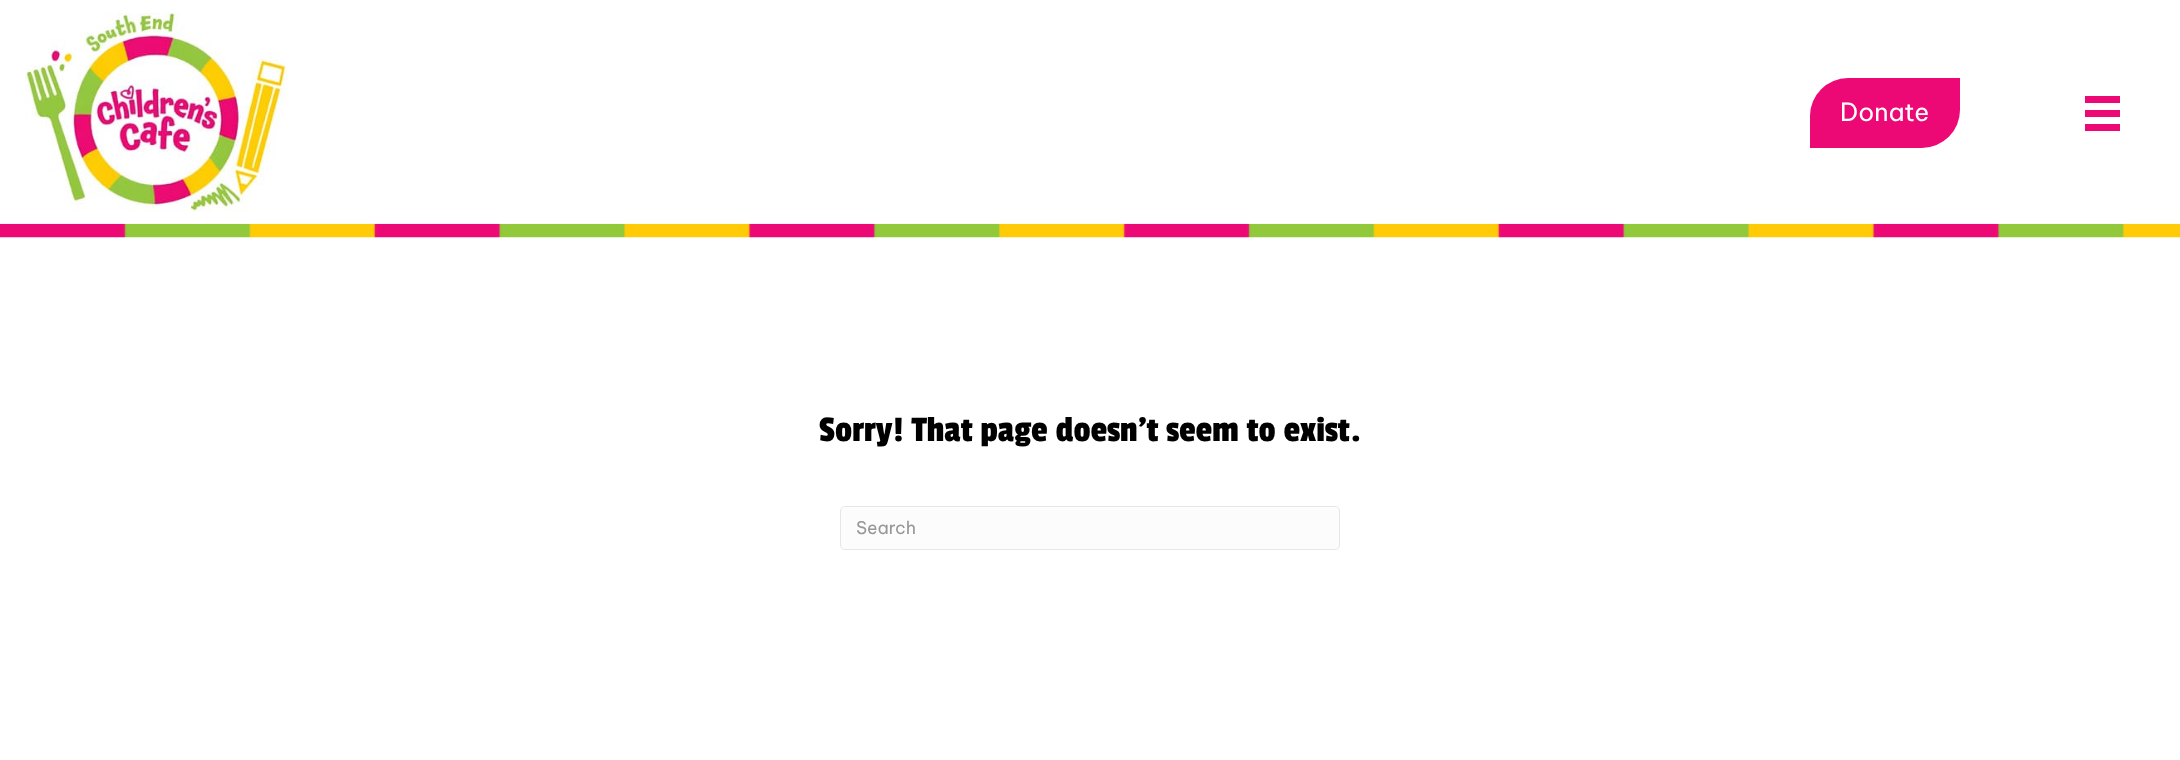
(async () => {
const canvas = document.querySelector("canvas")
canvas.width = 2180
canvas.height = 760
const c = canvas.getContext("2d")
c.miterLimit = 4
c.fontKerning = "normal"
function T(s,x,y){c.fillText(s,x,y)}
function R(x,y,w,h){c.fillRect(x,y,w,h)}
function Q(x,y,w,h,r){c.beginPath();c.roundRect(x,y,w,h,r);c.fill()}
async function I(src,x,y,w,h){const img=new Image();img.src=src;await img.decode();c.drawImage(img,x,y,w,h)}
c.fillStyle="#fff"
R(0,0,2180,760)
await I("1.png",25,12,263,199)
c.fillStyle="#ec0875"
c.beginPath()
c.roundRect(1810,78,150,70,[38,0,38,0])
c.fill()
c.font="25px Be Vietnam Pro"
c.fillStyle="#fff"
T("Donate",1840,121)
c.fillStyle="#ec0875"
R(2085,96,35,7)
R(2085,110,35,7)
R(2085,124,35,7)
await I("2.png",0,223,2180,15)
c.font="37.5px Passion One"
c.fillStyle="#000"
T("Sorry! That page doesn't seem to exist.",819,441)
c.fillStyle="#fcfcfc"
Q(841,508,498,41,4)
c.beginPath()
c.roundRect(840.5,506.5,499,43,4.5)
c.strokeStyle="#e6e6e6"
c.stroke()
c.font="17.5px Be Vietnam Pro"
c.fillStyle="#979797"
T("Search",856,534)
})()
